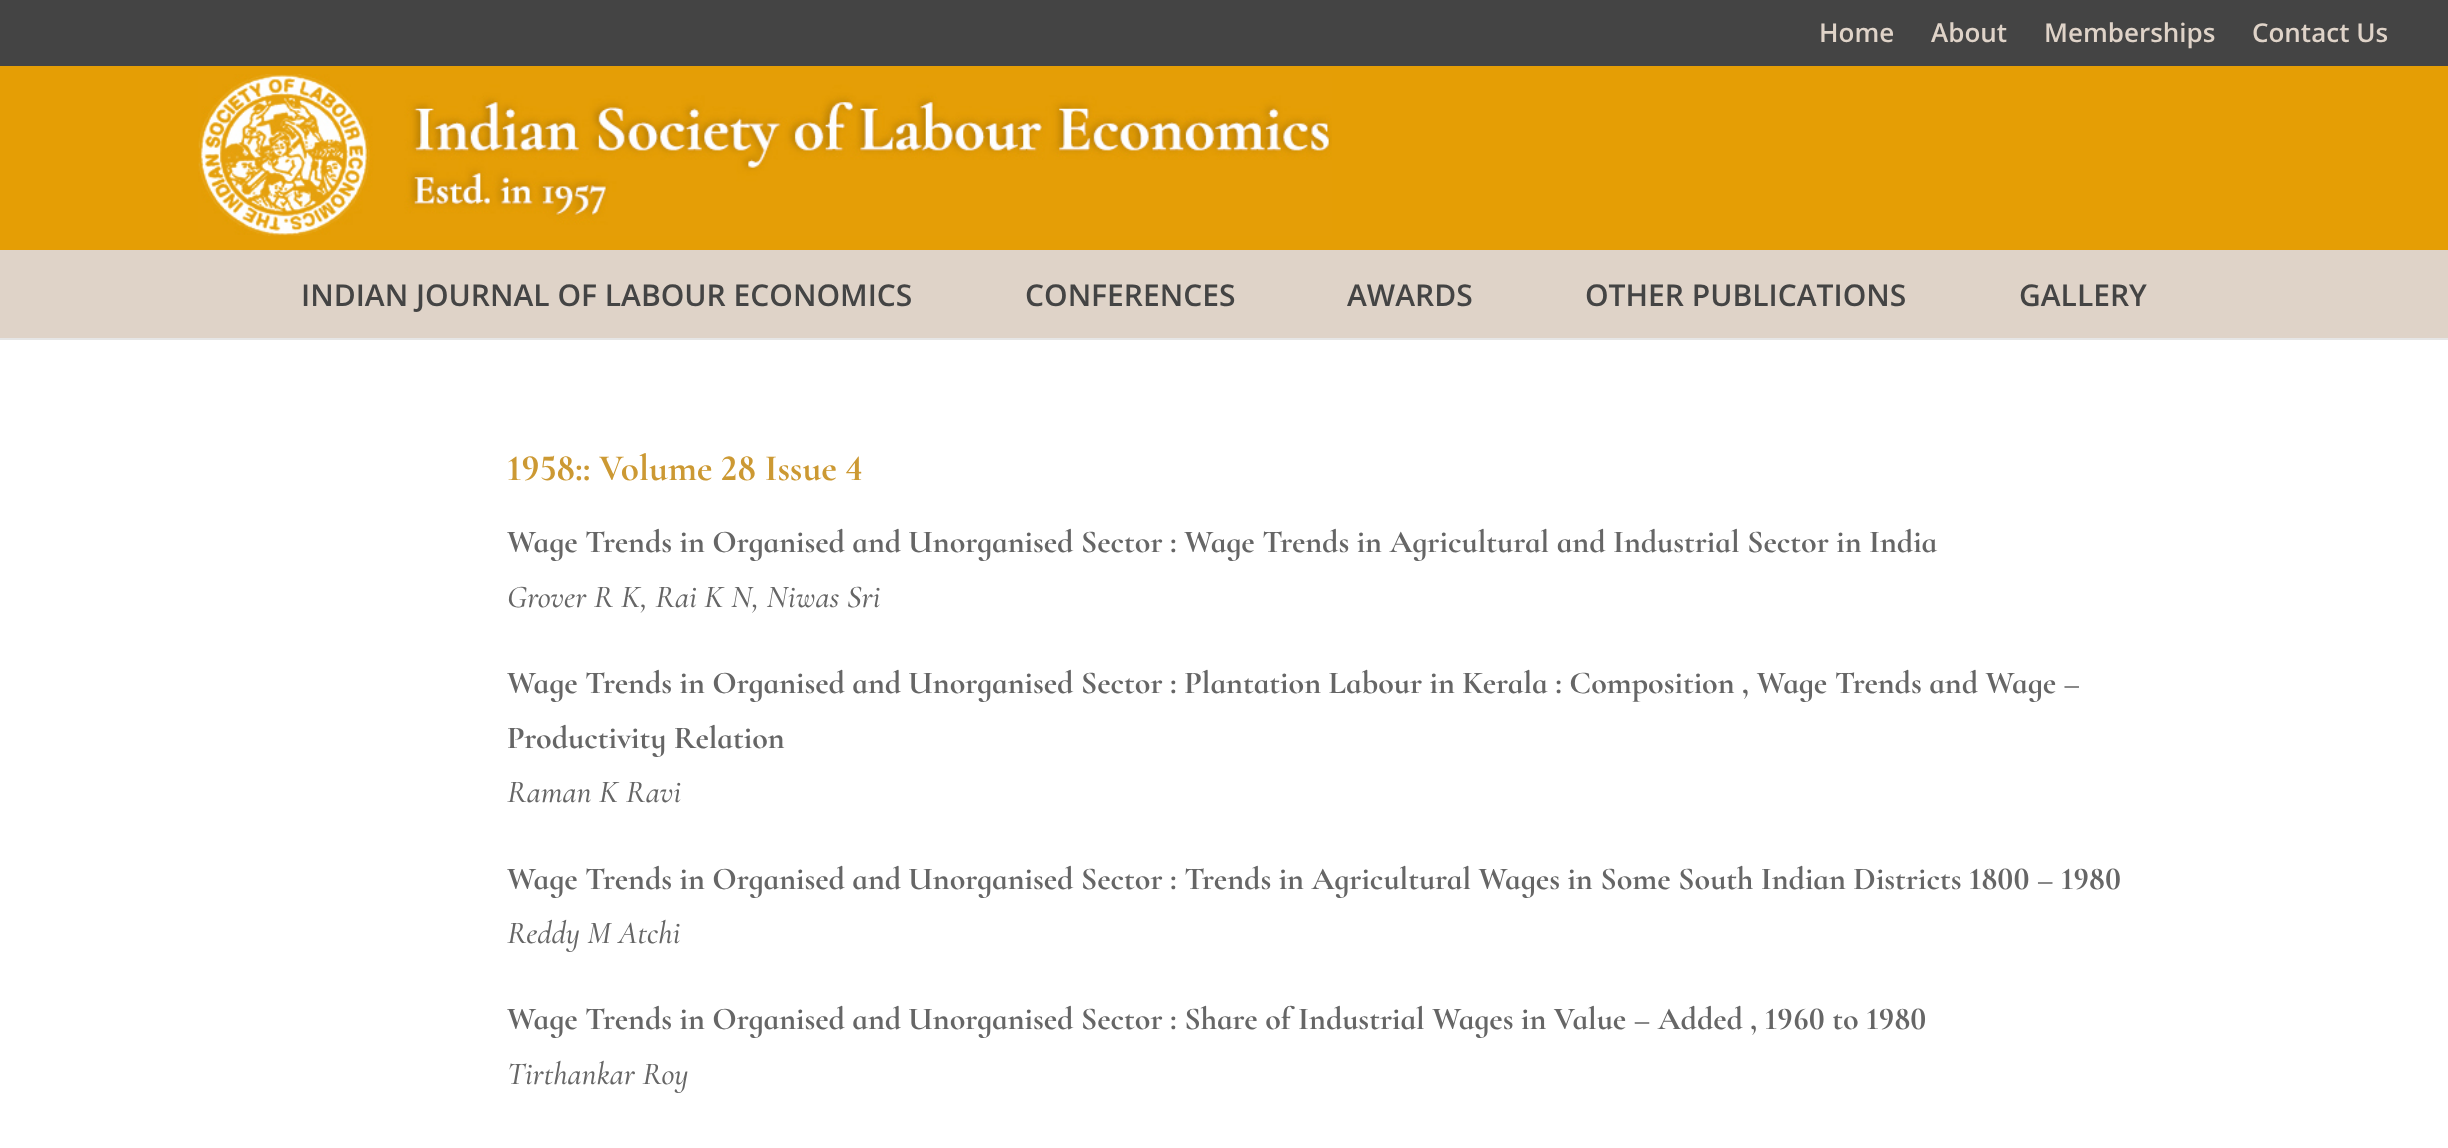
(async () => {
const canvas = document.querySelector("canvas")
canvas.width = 2448
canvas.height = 1148
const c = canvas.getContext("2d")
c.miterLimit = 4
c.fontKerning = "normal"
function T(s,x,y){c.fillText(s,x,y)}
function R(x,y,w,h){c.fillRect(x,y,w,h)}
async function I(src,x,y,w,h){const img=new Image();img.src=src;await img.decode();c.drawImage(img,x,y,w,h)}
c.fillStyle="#fff"
R(0,0,2448,1148)
c.fillStyle="#444"
R(0,0,2448,66)
c.font="600 26px Open Sans"
c.fillStyle="#dfd3c8"
T("Home",1819,42)
T("About",1931,42)
T("Memberships",2044,42)
T("Contact Us",2252,42)
c.fillStyle="#e6e6e6"
R(0,338,2448,2)
c.fillStyle="#e59e05"
R(0,66,2448,184)
await I("1.png",198,74,1134,162)
c.fillStyle="#dfd3c8"
R(0,250,2448,88)
c.font="600 30px Open Sans"
c.fillStyle="#444"
T("INDIAN JOURNAL OF LABOUR ECONOMICS",301,306)
T("CONFERENCES",1025,306)
T("AWARDS",1347,306)
T("OTHER PUBLICATIONS",1585,306)
T("GALLERY",2019,306)
c.font="bold 37.25px Cormorant Infant"
c.fillStyle="#c93"
T("1958:: Volume 28 Issue 4",507,480)
c.font="bold 32px Cormorant Infant"
c.fillStyle="#666"
T("Wage Trends in Organised and Unorganised Sector : Wage Trends in Agricultural and Industrial Sector in India",507,552)
c.font="italic 500 32px Cormorant Infant"
T("Grover R K, Rai K N, Niwas Sri",507,607)
c.font="bold 32px Cormorant Infant"
T("Wage Trends in Organised and Unorganised Sector : Plantation Labour in Kerala : Composition , Wage Trends and Wage –",507,693)
T("Productivity Relation",507,748)
c.font="italic 500 32px Cormorant Infant"
T("Raman K Ravi",507,802)
c.font="bold 32px Cormorant Infant"
T("Wage Trends in Organised and Unorganised Sector : Trends in Agricultural Wages in Some South Indian Districts 1800 – 1980",507,889)
c.font="italic 500 32px Cormorant Infant"
T("Reddy M Atchi",507,943)
c.font="bold 32px Cormorant Infant"
T("Wage Trends in Organised and Unorganised Sector : Share of Industrial Wages in Value – Added , 1960 to 1980",507,1029)
c.font="italic 500 32px Cormorant Infant"
T("Tirthankar Roy",507,1084)
})()
